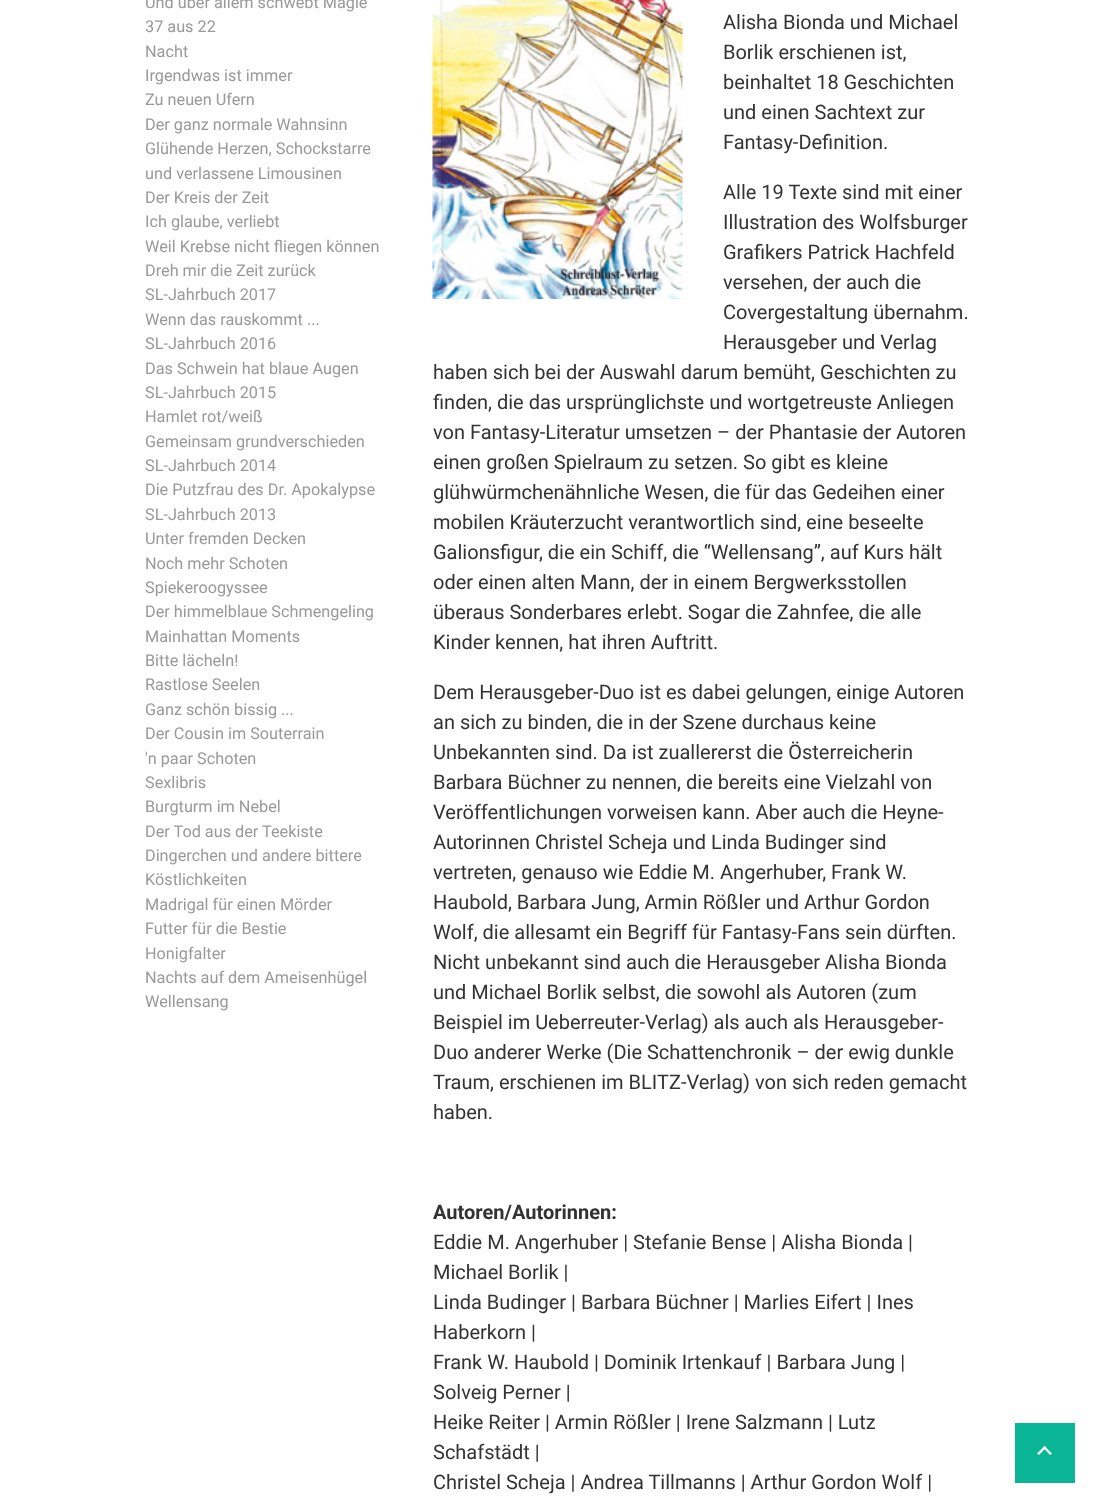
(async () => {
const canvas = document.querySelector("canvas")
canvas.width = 1115
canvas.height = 1512
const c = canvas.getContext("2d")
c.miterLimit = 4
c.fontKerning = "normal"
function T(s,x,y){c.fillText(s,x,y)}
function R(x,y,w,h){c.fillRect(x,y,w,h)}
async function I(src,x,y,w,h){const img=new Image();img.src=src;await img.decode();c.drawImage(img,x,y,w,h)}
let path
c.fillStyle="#fff"
R(0,0,1115,1512)
c.font="16.25px Roboto"
c.fillStyle="#999"
T("Und über allem schwebt Magie",145,8)
T("37 aus 22",145,32)
T("Nacht",145,57)
T("Irgendwas ist immer",145,81)
T("Zu neuen Ufern",145,105)
T("Der ganz normale Wahnsinn",145,130)
T("Glühende Herzen, Schockstarre",145,154)
T("und verlassene Limousinen",145,179)
T("Der Kreis der Zeit",145,203)
T("Ich glaube, verliebt",145,227)
T("Weil Krebse nicht fliegen können",145,252)
T("Dreh mir die Zeit zurück",145,276)
T("SL-Jahrbuch 2017",145,300)
T("Wenn das rauskommt ...",145,325)
T("SL-Jahrbuch 2016",145,349)
T("Das Schwein hat blaue Augen",145,374)
T("SL-Jahrbuch 2015",145,398)
T("Hamlet rot/weiß",145,422)
T("Gemeinsam grundverschieden",145,447)
T("SL-Jahrbuch 2014",145,471)
T("Die Putzfrau des Dr. Apokalypse",145,495)
T("SL-Jahrbuch 2013",145,520)
T("Unter fremden Decken",145,544)
T("Noch mehr Schoten",145,569)
T("Spiekeroogyssee",145,593)
T("Der himmelblaue Schmengeling",145,617)
T("Mainhattan Moments",145,642)
T("Bitte lächeln!",145,666)
T("Rastlose Seelen",145,690)
T("Ganz schön bissig ...",145,715)
T("Der Cousin im Souterrain",145,739)
T("'n paar Schoten",145,764)
T("Sexlibris",145,788)
T("Burgturm im Nebel",145,812)
T("Der Tod aus der Teekiste",145,837)
T("Dingerchen und andere bittere",145,861)
T("Köstlichkeiten",145,885)
T("Madrigal für einen Mörder",145,910)
T("Futter für die Bestie",145,934)
T("Honigfalter",145,959)
T("Nachts auf dem Ameisenhügel",145,983)
T("Wellensang",145,1007)
await I("1.png",432,0,251,299)
c.font="20px Roboto"
c.fillStyle="#333"
T("Alisha Bionda und Michael",723,29)
T("Borlik erschienen ist,",723,59)
T("beinhaltet 18 Geschichten",723,89)
T("und einen Sachtext zur",723,119)
T("Fantasy-Definition.",723,149)
T("Alle 19 Texte sind mit einer",723,199)
T("Illustration des Wolfsburger",723,229)
T("Grafikers Patrick Hachfeld",723,259)
T("versehen, der auch die",723,289)
T("Covergestaltung übernahm.",723,319)
T("Herausgeber und Verlag",723,349)
T("haben sich bei der Auswahl darum bemüht, Geschichten zu",433,379)
T("finden, die das ursprünglichste und wortgetreuste Anliegen",433,409)
T("von Fantasy-Literatur umsetzen – der Phantasie der Autoren",433,439)
T("einen großen Spielraum zu setzen. So gibt es kleine",433,469)
T("glühwürmchenähnliche Wesen, die für das Gedeihen einer",433,499)
T("mobilen Kräuterzucht verantwortlich sind, eine beseelte",433,529)
T("Galionsfigur, die ein Schiff, die “Wellensang”, auf Kurs hält",433,559)
T("oder einen alten Mann, der in einem Bergwerksstollen",433,589)
T("überaus Sonderbares erlebt. Sogar die Zahnfee, die alle",433,619)
T("Kinder kennen, hat ihren Auftritt.",433,649)
T("Dem Herausgeber-Duo ist es dabei gelungen, einige Autoren",433,699)
T("an sich zu binden, die in der Szene durchaus keine",433,729)
T("Unbekannten sind. Da ist zuallererst die Österreicherin",433,759)
T("Barbara Büchner zu nennen, die bereits eine Vielzahl von",433,789)
T("Veröffentlichungen vorweisen kann. Aber auch die Heyne-",433,819)
T("Autorinnen Christel Scheja und Linda Budinger sind",433,849)
T("vertreten, genauso wie Eddie M. Angerhuber, Frank W.",433,879)
T("Haubold, Barbara Jung, Armin Rößler und Arthur Gordon",433,909)
T("Wolf, die allesamt ein Begriff für Fantasy-Fans sein dürften.",433,939)
T("Nicht unbekannt sind auch die Herausgeber Alisha Bionda",433,969)
T("und Michael Borlik selbst, die sowohl als Autoren (zum",433,999)
T("Beispiel im Ueberreuter-Verlag) als auch als Herausgeber-",433,1029)
T("Duo anderer Werke (Die Schattenchronik – der ewig dunkle",433,1059)
T("Traum, erschienen im BLITZ-Verlag) von sich reden gemacht",433,1089)
T("haben.",433,1119)
c.font="bold 20px Roboto"
T("Autoren/Autorinnen:",433,1219)
c.font="20px Roboto"
T("Eddie M. Angerhuber | Stefanie Bense | Alisha Bionda |",433,1249)
T("Michael Borlik |",433,1279)
T("Linda Budinger | Barbara Büchner | Marlies Eifert | Ines",433,1309)
T("Haberkorn |",433,1339)
T("Frank W. Haubold | Dominik Irtenkauf | Barbara Jung |",433,1369)
T("Solveig Perner |",433,1399)
T("Heike Reiter | Armin Rößler | Irene Salzmann | Lutz",433,1429)
T("Schafstädt |",433,1459)
T("Christel Scheja | Andrea Tillmanns | Arthur Gordon Wolf |",433,1489)
c.fillStyle="#0bb697"
R(1015,1423,60,60)
c.fillStyle="#f4f4f4"
path = new Path2D("M1037 1453.5l7.5-7.5l2 1.5l-7.5 7.5z")
c.fill(path)
path = new Path2D("M1043 1447.5l1.5-1.5l7.5 7.5l-2 1.5z")
c.fill(path)
})()
